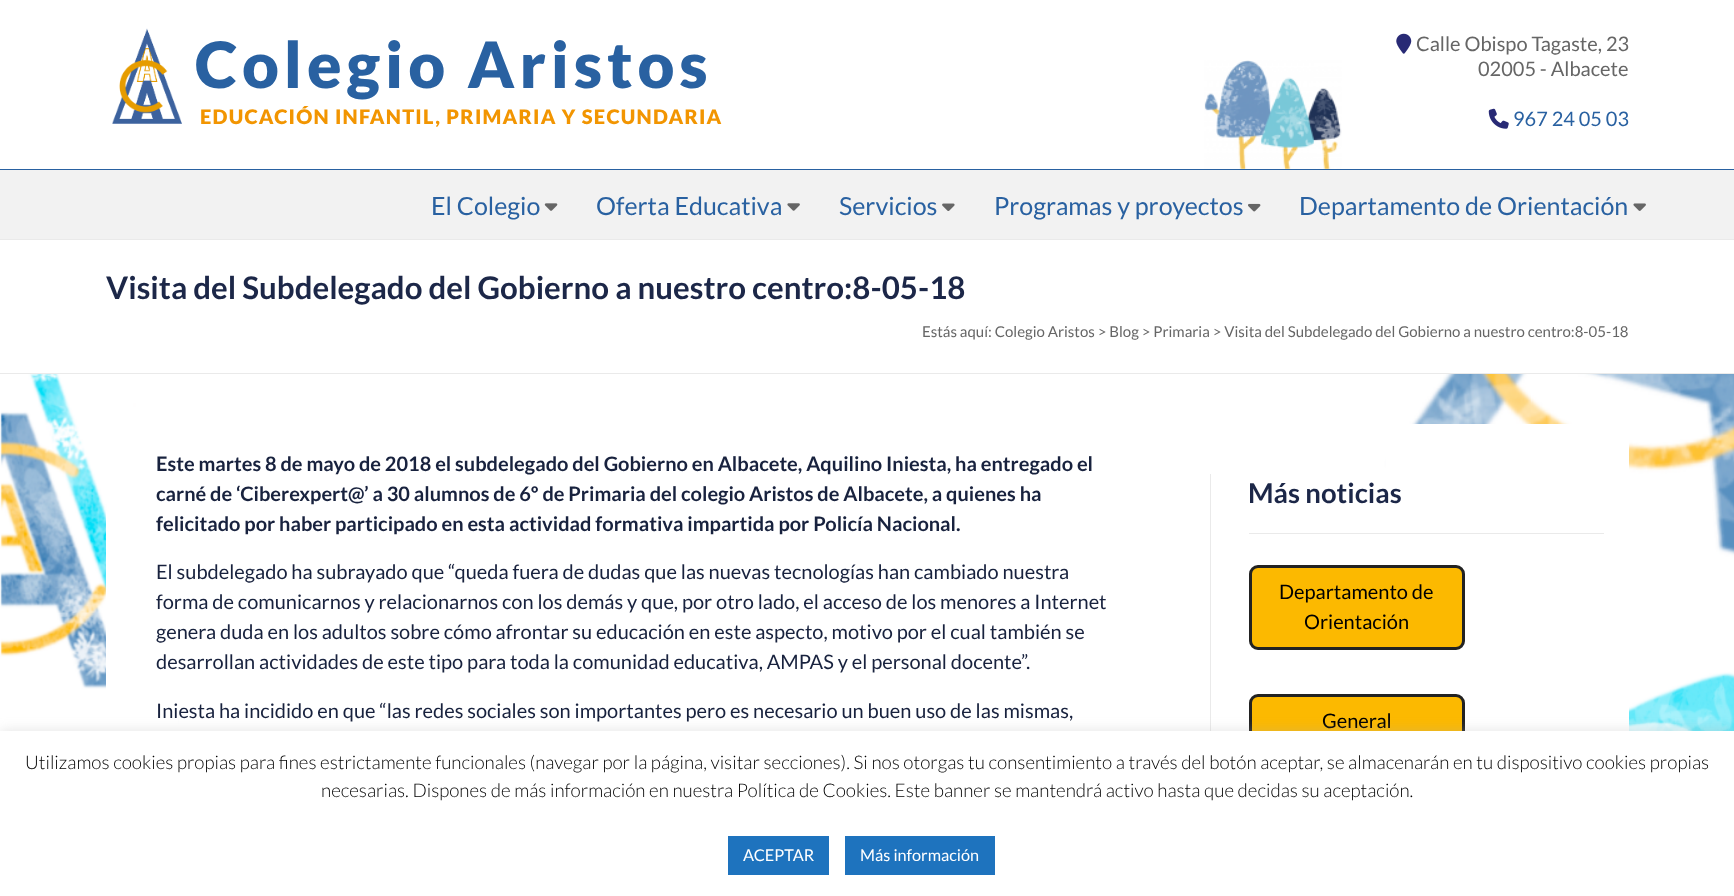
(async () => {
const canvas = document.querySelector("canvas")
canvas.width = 1734
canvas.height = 896
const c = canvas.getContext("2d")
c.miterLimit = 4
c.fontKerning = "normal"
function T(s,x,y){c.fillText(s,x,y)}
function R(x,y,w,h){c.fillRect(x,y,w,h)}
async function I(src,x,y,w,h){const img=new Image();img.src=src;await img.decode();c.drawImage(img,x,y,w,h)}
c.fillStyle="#fff"
R(0,0,1734,896)
await I("1.png",0,374,1734,357)
await I("2.png",1204,60,138,109)
c.fillStyle="#eaeaea"
R(0,239,1734,1)
await I("3.png",112,28,70,96)
c.letterSpacing="5px"
c.font="900 63.75px Lato"
c.fillStyle="#2961a1"
T("Colegio Aristos",195,88)
c.letterSpacing="1.25px"
c.font="900 20px Lato"
c.fillStyle="#f29501"
T("EDUCACIÓN INFANTIL, PRIMARIA Y SECUNDARIA",200,124)
await I("4.png",1396,33,16,21)
c.letterSpacing="0px"
c.font="20px Lato"
c.fillStyle="#666"
T("Calle Obispo Tagaste, 23",1416,51)
T("02005 - Albacete",1478,76)
await I("5.png",1488,108,21,21)
c.fillStyle="#2961a1"
T("967 24 05 03",1513,126)
c.fillStyle="#f2f2f2"
R(0,170,1734,69)
c.fillStyle="#2961a1"
R(0,169,1734,1)
c.font="25px Lato"
T("El Colegio",431,215)
await I("6.png",544,203,14,8)
T("Oferta Educativa",596,215)
await I("7.png",787,203,13,8)
T("Servicios",839,215)
await I("8.png",942,203,13,8)
T("Programas y proyectos",994,215)
await I("9.png",1248,203,13,9)
T("Departamento de Orientación",1299,215)
await I("10.png",1633,203,13,8)
c.fillStyle="#eaeaea"
R(0,373,1734,1)
c.font="bold 31.25px Lato"
c.fillStyle="#1c2748"
T("Visita del Subdelegado del Gobierno a nuestro centro:8-05-18",106,299)
c.font="15px Lato"
c.fillStyle="#666"
T("Estás aquí: Colegio Aristos > Blog > Primaria > Visita del Subdelegado del Gobierno a nuestro centro:8-05-18",922,337)
c.fillStyle="#fff"
R(106,511,72,220)
c.font="bold 20px Lato"
c.fillStyle="#18223e"
T("Este martes 8 de mayo de 2018 el subdelegado del Gobierno en Albacete, Aquilino Iniesta, ha entregado el",156,471)
T("carné de ‘Ciberexpert@’ a 30 alumnos de 6º de Primaria del colegio Aristos de Albacete, a quienes ha",156,501)
T("felicitado por haber participado en esta actividad formativa impartida por Policía Nacional.",156,531)
c.font="20px Lato"
T("El subdelegado ha subrayado que “queda fuera de dudas que las nuevas tecnologías han cambiado nuestra",156,579)
T("forma de comunicarnos y relacionarnos con los demás y que, por otro lado, el acceso de los menores a Internet",156,609)
T("genera duda en los adultos sobre cómo afrontar su educación en este aspecto, motivo por el cual también se",156,639)
T("desarrollan actividades de este tipo para toda la comunidad educativa, AMPAS y el personal docente”.",156,669)
T("Iniesta ha incidido en que “las redes sociales son importantes pero es necesario un buen uso de las mismas,",156,718)
c.fillStyle="#fff"
R(1386,424,243,307)
c.fillStyle="#eaeaea"
R(1210,474,1,257)
R(1249,533,355,1)
c.font="bold 27.5px Lato"
c.fillStyle="#1c2748"
T("Más noticias",1248,503)
c.fillStyle="#fcb900"
c.beginPath()
c.roundRect(1250.5,566.5,213,82,7.5)
c.fill()
c.strokeStyle="#222"
c.lineWidth=3
c.stroke()
c.font="20px Lato"
c.fillStyle="#000"
T("Departamento de",1279,599)
T("Orientación",1304,629)
c.fillStyle="#fcb900"
c.beginPath()
c.roundRect(1250.5,695.5,213,52,7.5)
c.fill()
c.stroke()
c.fillStyle="#000"
T("General",1322,728)
c.fillStyle="#acabab4d"
c.filter="blur(6px)"
c.beginPath()
c.rect(0,730,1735,165)
c.fill()
c.filter="none"
c.fillStyle="#fff"
R(0,731,1734,165)
c.font="300 18.75px Lato"
c.fillStyle="#000"
T("Utilizamos cookies propias para fines estrictamente funcionales (navegar por la página, visitar secciones). Si nos otorgas tu consentimiento a través del botón aceptar, se almacenarán en tu dispositivo cookies propias",25,769)
T("necesarias. Dispones de más información en nuestra Política de Cookies. Este banner se mantendrá activo hasta que decidas su aceptación.",321,797)
c.fillStyle="#1e73be"
R(728,836,101,39)
c.font="16.25px Lato"
c.fillStyle="#fff"
T("ACEPTAR",743,861)
c.fillStyle="#1e73be"
R(845,836,150,39)
c.fillStyle="#fff"
T("Más información",860,861)
})()
